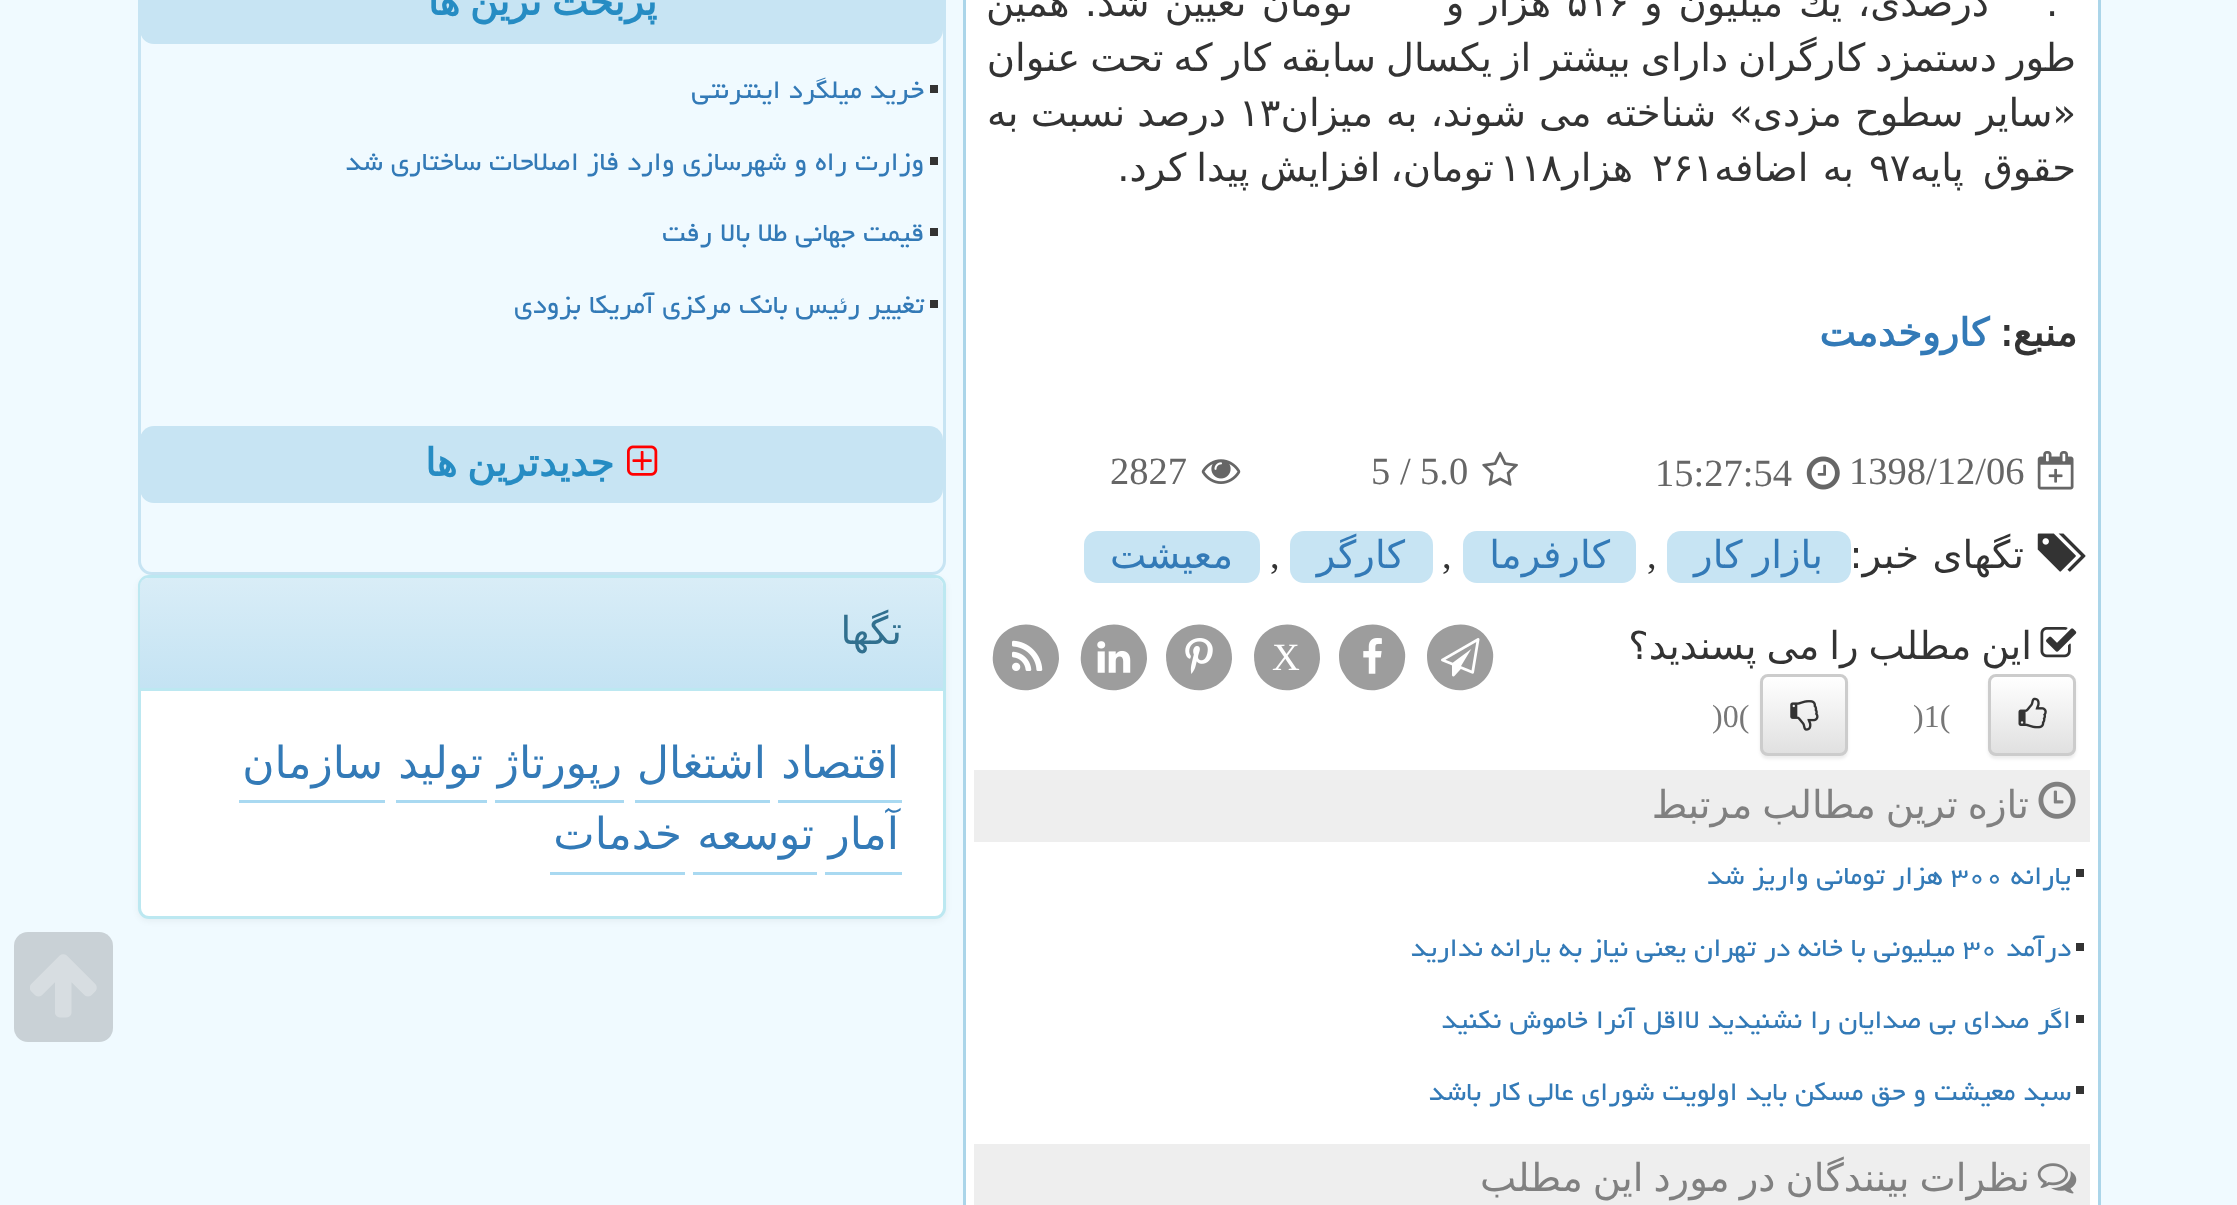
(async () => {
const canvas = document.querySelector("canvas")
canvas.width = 2237
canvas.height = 1205
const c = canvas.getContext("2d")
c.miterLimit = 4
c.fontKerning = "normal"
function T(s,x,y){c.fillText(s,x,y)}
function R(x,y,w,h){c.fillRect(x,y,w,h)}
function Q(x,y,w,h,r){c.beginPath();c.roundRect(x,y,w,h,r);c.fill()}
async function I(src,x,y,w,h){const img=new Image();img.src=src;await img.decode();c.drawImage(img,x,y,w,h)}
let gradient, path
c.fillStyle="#f0faff"
R(0,0,2237,1205)
c.fillStyle="#fff"
c.beginPath()
c.rect(964.5,-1.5,1135,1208)
c.fill()
c.strokeStyle="#abd5e9"
c.lineWidth=3
c.stroke()
c.font="38.5px DejaVu Sans"
c.fillStyle="#333"
T(".",2046,16)
c.wordSpacing="3.5px"
c.direction="rtl"
T("درصدی، یك میلیون و",1989,16)
c.wordSpacing="0px"
c.direction="ltr"
T("۵۱۶",1567,16)
c.wordSpacing="3.5px"
c.direction="rtl"
T("هزار و",1551,16)
c.wordSpacing="3px"
T("تومان تعیین شد. همین",1353,16)
c.wordSpacing="-2.25px"
T("طور دستمزد كارگران دارای بیشتر از یكسال سابقه كار كه تحت عنوان",2076,71)
c.wordSpacing="0.75px"
T("«سایر سطوح مزدی» شناخته می شوند، به میزان",2076,126)
c.wordSpacing="0px"
c.direction="ltr"
T("۱۳",1239,126)
c.direction="rtl"
T("درصد نسبت به",1226,126)
c.wordSpacing="7px"
T("حقوق پایه",2076,181)
c.wordSpacing="0px"
c.direction="ltr"
T("۹۷",1869,181)
c.wordSpacing="2px"
c.direction="rtl"
T("به اضافه",1854,181)
c.wordSpacing="0px"
c.direction="ltr"
T("۲۶۱",1652,181)
T("۱۱۸",1500,181)
c.direction="rtl"
T("هزار",1633,181)
c.wordSpacing="-2.25px"
T("تومان، افزایش پیدا كرد.",1494,181)
c.wordSpacing="0px"
c.font="bold 38.5px DejaVu Sans"
T("منبع:",2077,346)
c.fillStyle="#337ab7"
T("كاروخدمت",1989,346)
await I("1.png",2037,451,37,39)
c.direction="ltr"
c.font="38.5px Liberation Serif"
c.fillStyle="#666"
T("1398/12/06",1849,484)
await I("2.png",1806,456,34,34)
T("15:27:54",1655,486)
await I("3.png",1482,451,36,35)
T("5.0",1420,484)
T("5 /",1371,484)
await I("4.png",1201,459,40,25)
T("2827",1110,484)
await I("5.png",2037,533,49,39)
c.wordSpacing="1px"
c.direction="rtl"
c.font="38.5px DejaVu Sans"
c.fillStyle="#333"
T("تگهای خبر:",2024,568)
c.fillStyle="#c7e4f3"
Q(1667,531,184,52,14)
c.wordSpacing="-2.25px"
c.fillStyle="#337ab7"
T("بازار كار",1823,568)
c.wordSpacing="0px"
c.direction="ltr"
c.font="38.5px Liberation Serif"
c.fillStyle="#333"
T(",",1647,568)
c.fillStyle="#c7e4f3"
Q(1463,531,173,52,14)
c.direction="rtl"
c.font="38.5px DejaVu Sans"
c.fillStyle="#337ab7"
T("كارفرما",1610,568)
c.direction="ltr"
c.font="38.5px Liberation Serif"
c.fillStyle="#333"
T(",",1442,568)
c.fillStyle="#c7e4f3"
Q(1290,531,143,52,14)
c.direction="rtl"
c.font="38.5px DejaVu Sans"
c.fillStyle="#337ab7"
T("كارگر",1405,568)
c.direction="ltr"
c.font="38.5px Liberation Serif"
c.fillStyle="#333"
T(",",1270,568)
c.fillStyle="#c7e4f3"
Q(1084,531,176,52,14)
c.direction="rtl"
c.font="38.5px DejaVu Sans"
c.fillStyle="#337ab7"
T("معیشت",1233,568)
await I("6.png",2040,627,37,31)
c.wordSpacing="-2.25px"
c.fillStyle="#333"
T("این مطلب را می پسندید؟",2032,659)
c.fillStyle="#00000012"
c.filter="blur(1.5px)"
c.beginPath()
c.roundRect(1988,677,88,82,8)
c.fill()
c.filter="none"
c.save()
c.beginPath()
c.roundRect(1988,674,88,82,8)
c.clip()
gradient = c.createLinearGradient(2032,677,2032,754)
gradient.addColorStop(0,"#fff")
gradient.addColorStop(1,"#e0e0e0")
c.fillStyle = gradient
R(1988,677,88,77)
c.restore()
c.beginPath()
c.roundRect(1989.5,675.5,85,79,6.5)
c.strokeStyle="#ccc"
c.stroke()
await I("7.png",2018,697,29,32)
c.wordSpacing="0px"
c.direction="ltr"
c.font="32px Liberation Serif"
c.fillStyle="#777"
T(")1(",1913,727)
c.fillStyle="#00000012"
c.filter="blur(1.5px)"
c.beginPath()
c.roundRect(1760,677,88,82,8)
c.fill()
c.filter="none"
c.save()
c.beginPath()
c.roundRect(1760,674,88,82,8)
c.clip()
gradient = c.createLinearGradient(1804,677,1804,754)
gradient.addColorStop(0,"#fff")
gradient.addColorStop(1,"#e0e0e0")
c.fillStyle = gradient
R(1760,677,88,77)
c.restore()
c.beginPath()
c.roundRect(1761.5,675.5,85,79,6.5)
c.stroke()
await I("8.png",1790,700,29,31)
c.fillStyle="#777"
T(")0(",1712,727)
c.fillStyle="#9d9d9d"
path = new Path2D("M1489 641c3 5 5 12 4 18c-2 33-45 43-61 15c-4-6-5-12-5-19c2-32 46-42 62-14z")
c.fill(path)
await I("9.png",1441,638,39,39)
path = new Path2D("M1401 641c3 5 5 12 4 18c-2 33-45 43-61 15c-4-6-5-12-5-19c2-32 46-42 62-14z")
c.fill(path)
await I("10.png",1363,638,19,36)
path = new Path2D("M1316 641c3 5 4 12 4 18c-2 33-45 43-62 15c-3-6-4-12-4-19c2-32 45-42 62-14z")
c.fill(path)
c.font="38.5px Liberation Serif"
c.fillStyle="#fff"
T("X",1272,670)
c.fillStyle="#9d9d9d"
path = new Path2D("M1228 641c3 5 4 12 4 18c-2 33-45 43-62 15c-3-6-4-12-4-19c2-32 45-42 62-14z")
c.fill(path)
await I("11.png",1185,638,28,36)
path = new Path2D("M1142 641c4 5 5 12 5 18c-2 33-46 43-62 15c-3-6-5-12-4-19c2-32 45-42 61-14z")
c.fill(path)
await I("12.png",1097,641,34,32)
path = new Path2D("M1054 641c4 5 5 12 5 18c-2 33-46 43-62 15c-3-6-5-12-4-19c2-32 45-42 61-14z")
c.fill(path)
await I("13.png",1012,640,31,31)
c.fillStyle="#eee"
R(974,770,1116,72)
await I("14.png",2038,781,38,38)
c.wordSpacing="-2.25px"
c.direction="rtl"
c.font="38.5px DejaVu Sans"
c.fillStyle="#808080"
T("تازه ترین مطالب مرتبط",2029,818)
c.fillStyle="#333"
R(2076,869,8,8)
c.wordSpacing="0px"
c.font="33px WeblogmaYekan"
c.fillStyle="#337ab7"
T("یارانه",2071,884)
c.direction="ltr"
T("۳۰۰",1951,884)
c.direction="rtl"
T("هزار تومانی واریز شد",1943,884)
c.fillStyle="#333"
R(2076,943,8,8)
c.fillStyle="#337ab7"
T("درآمد",2071,956)
c.direction="ltr"
T("۳۰",1963,956)
c.direction="rtl"
T("میلیونی با خانه در تهران یعنی نیاز به یارانه ندارید",1955,956)
c.fillStyle="#333"
R(2076,1015,8,8)
c.fillStyle="#337ab7"
T("اگر صدای بی صدایان را نشنیدید لااقل آنرا خاموش نکنید",2071,1028)
c.fillStyle="#333"
R(2076,1086,8,8)
c.fillStyle="#337ab7"
T("سبد معیشت و حق مسکن باید اولویت شورای عالی کار باشد",2071,1100)
c.fillStyle="#eee"
R(974,1144,1116,61)
await I("15.png",2037,1163,40,31)
c.wordSpacing="-2.25px"
c.font="38.5px DejaVu Sans"
c.fillStyle="#808080"
T("نظرات بینندگان در مورد این مطلب",2030,1191)
c.beginPath()
c.roundRect(139.5,-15.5,805,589,12.5)
c.strokeStyle="#c7e4f3"
c.stroke()
c.fillStyle="#c7e4f3"
Q(140,-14,803,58,14)
c.font="bold 38.5px DejaVu Sans"
c.fillStyle="#268cc3"
T("پربحث ترین ها",657,15)
c.fillStyle="#333"
R(930,85,8,8)
c.wordSpacing="0px"
c.font="33px WeblogmaYekan"
c.fillStyle="#337ab7"
T("خرید میلگرد اینترنتی",924,98)
c.fillStyle="#333"
R(930,157,8,8)
c.fillStyle="#337ab7"
T("وزارت راه و شهرسازی وارد فاز اصلاحات ساختاری شد",924,170)
c.fillStyle="#333"
R(930,228,8,8)
c.fillStyle="#337ab7"
T("قیمت جهانی طلا بالا رفت",924,241)
c.fillStyle="#333"
R(930,300,8,8)
c.fillStyle="#337ab7"
T("تغییر رئیس بانک مرکزی آمریکا بزودی",924,313)
c.fillStyle="#c7e4f3"
Q(140,426,803,77,14)
await I("16.png",627,445,31,31)
c.wordSpacing="-2.25px"
c.font="bold 38.5px DejaVu Sans"
c.fillStyle="#268cc3"
T("جدیدترین ها",614,476)
c.fillStyle="#0000000d"
c.filter="blur(3px)"
c.beginPath()
c.roundRect(138,578,808,343,11)
c.fill()
c.filter="none"
c.fillStyle="#fff"
c.beginPath()
c.roundRect(139.5,576.5,805,341,9.5)
c.fill()
c.strokeStyle="#bce8f1"
c.stroke()
gradient = c.createLinearGradient(542,577,542,688)
gradient.addColorStop(0,"#d9edf7")
gradient.addColorStop(1,"#c4e3f3")
c.fillStyle = gradient
c.beginPath()
c.roundRect(140,578,803,110,[8,8,0,0])
c.fill()
c.fillStyle="#bce8f1"
R(140,688,803,3)
c.wordSpacing="0px"
c.font="38.5px DejaVu Sans"
c.fillStyle="#31708f"
T("تگها",902,644)
c.fillStyle="#a9d9f1"
R(778,800,124,3)
c.font="44px DejaVu Sans"
c.fillStyle="#337ab7"
T("اقتصاد",899,778)
c.fillStyle="#a9d9f1"
R(635,800,135,3)
c.fillStyle="#337ab7"
T("اشتغال",766,778)
c.fillStyle="#a9d9f1"
R(495,800,129,3)
c.fillStyle="#337ab7"
T("رپورتاژ",622,778)
c.fillStyle="#a9d9f1"
R(396,800,91,3)
c.fillStyle="#337ab7"
T("تولید",483,778)
c.fillStyle="#a9d9f1"
R(239,800,146,3)
c.fillStyle="#337ab7"
T("سازمان",383,778)
c.fillStyle="#a9d9f1"
R(825,872,77,3)
c.fillStyle="#337ab7"
T("آمار",899,849)
c.fillStyle="#a9d9f1"
R(693,872,124,3)
c.fillStyle="#337ab7"
T("توسعه",814,849)
c.fillStyle="#a9d9f1"
R(550,872,135,3)
c.fillStyle="#337ab7"
T("خدمات",682,849)
c.fillStyle="#c9d1d6"
Q(14,932,99,110,14)
await I("17.png",30,954,67,64)
})()
